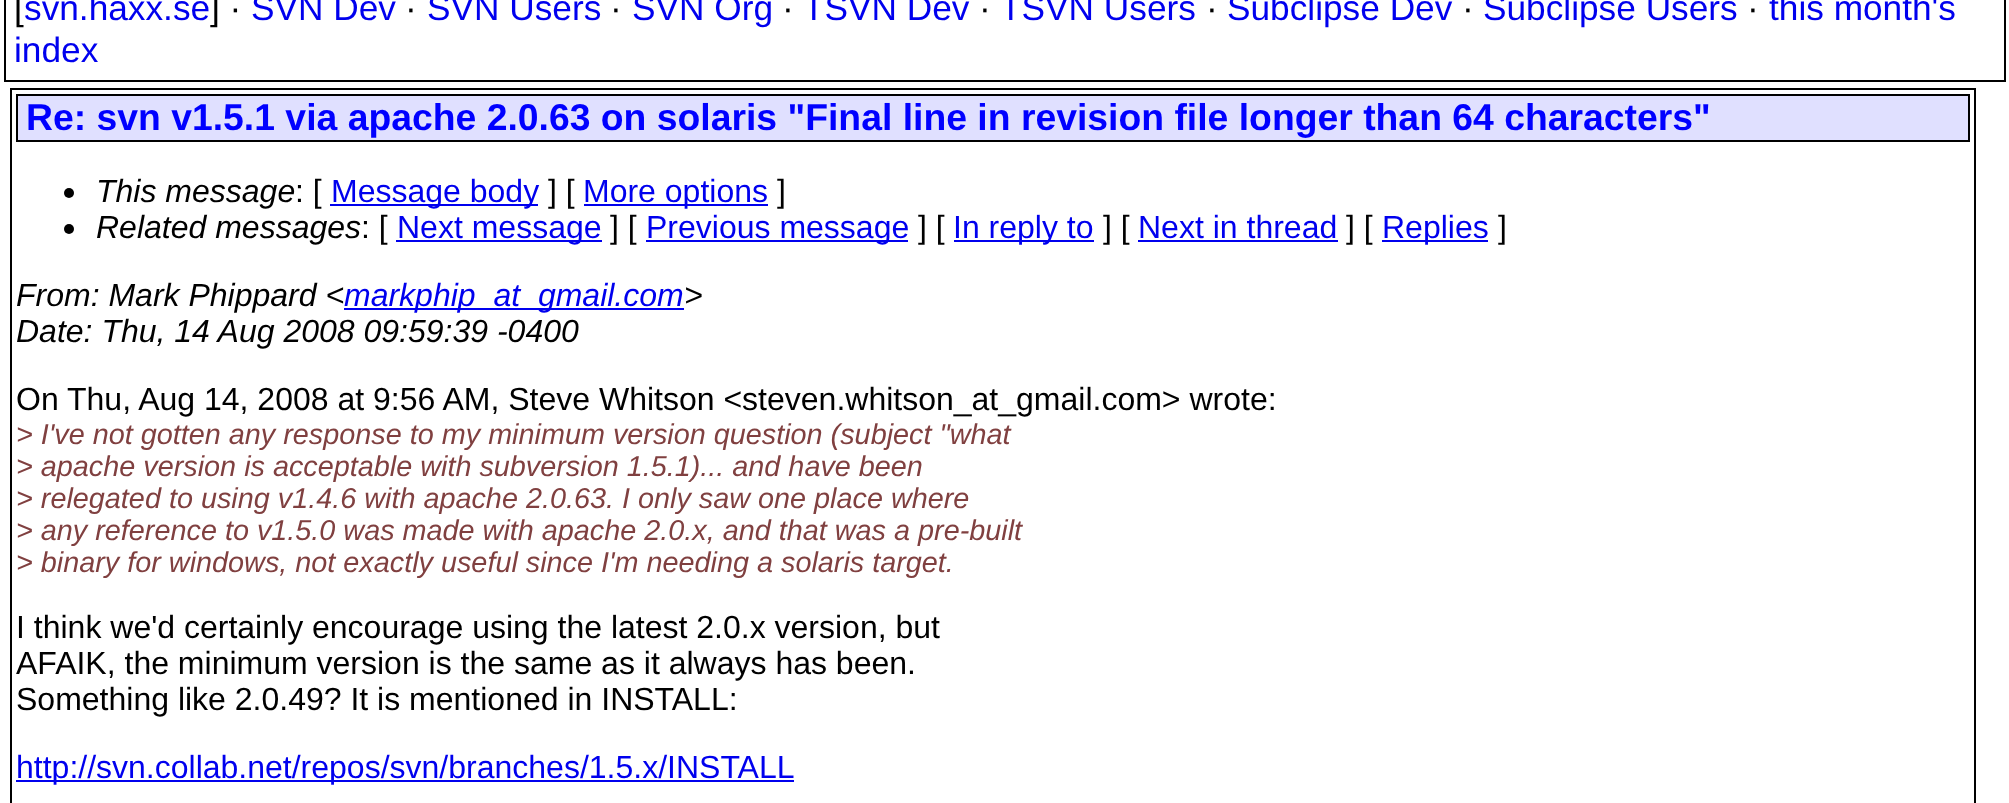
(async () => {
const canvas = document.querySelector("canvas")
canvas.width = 2009
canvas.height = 803
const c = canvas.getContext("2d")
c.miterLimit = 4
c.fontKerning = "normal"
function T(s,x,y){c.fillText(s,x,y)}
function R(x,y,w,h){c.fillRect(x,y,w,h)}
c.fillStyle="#fff"
R(0,0,2009,803)
c.strokeStyle="#000"
c.lineWidth=2
c.strokeRect(5,-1,2000,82)
c.font="35.25px Liberation Sans"
c.fillStyle="#000"
T("[",14,20)
c.fillStyle="#00e"
T("svn.haxx.se",24,20)
c.fillStyle="#000"
T("] ·",210,20)
c.fillStyle="#00e"
T("SVN Dev",251,20)
c.fillStyle="#000"
T("·",405,20)
c.fillStyle="#00e"
T("SVN Users",427,20)
c.fillStyle="#000"
T("·",610,20)
c.fillStyle="#00e"
T("SVN Org",632,20)
c.fillStyle="#000"
T("·",782,20)
c.fillStyle="#00e"
T("TSVN Dev",803,20)
c.fillStyle="#000"
T("·",979,20)
c.fillStyle="#00e"
T("TSVN Users",1000,20)
c.fillStyle="#000"
T("·",1206,20)
c.fillStyle="#00e"
T("Subclipse Dev",1227,20)
c.fillStyle="#000"
T("·",1462,20)
c.fillStyle="#00e"
T("Subclipse Users",1483,20)
c.fillStyle="#000"
T("·",1747,20)
c.fillStyle="#00e"
T("this month's",1769,20)
T("index",14,62)
c.strokeRect(11,89,1964,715)
c.fillStyle="#e0e0ff"
c.beginPath()
c.rect(17,95,1952,46)
c.fill()
c.stroke()
c.font="bold 37.35px Liberation Sans"
c.fillStyle="#00f"
T("Re: svn v1.5.1 via apache 2.0.63 on solaris \"Final line in revision file longer than 64 characters\"",26,130)
c.fillStyle="#000"
c.beginPath()
c.arc(69,193,5,0,7)
c.fill()
c.font="italic 32px Liberation Sans"
T("This message",96,202)
c.font="32px Liberation Sans"
T(": [",295,202)
c.fillStyle="#00e"
R(330,204,208,2)
T("Message body",331,202)
c.fillStyle="#000"
T("] [",548,202)
c.fillStyle="#00e"
R(584,204,184,2)
T("More options",583,202)
c.fillStyle="#000"
T("]",777,202)
c.beginPath()
c.arc(69,229,5,0,7)
c.fill()
c.font="italic 32px Liberation Sans"
T("Related messages",96,238)
c.font="32px Liberation Sans"
T(": [",361,238)
c.fillStyle="#00e"
R(396,240,206,2)
T("Next message",397,238)
c.fillStyle="#000"
T("] [",610,238)
c.fillStyle="#00e"
R(646,240,262,2)
T("Previous message",646,238)
c.fillStyle="#000"
T("] [",918,238)
c.fillStyle="#00e"
R(954,240,140,2)
T("In reply to",953,238)
c.fillStyle="#000"
T("] [",1103,238)
c.fillStyle="#00e"
T("Next in thread",1138,238)
R(1138,240,200,2)
c.fillStyle="#000"
T("] [",1346,238)
c.fillStyle="#00e"
R(1382,240,106,2)
T("Replies",1382,238)
c.fillStyle="#000"
T("]",1498,238)
c.font="italic 32px Liberation Sans"
T("From: Mark Phippard <",16,306)
c.fillStyle="#00e"
R(344,308,340,2)
T("markphip_at_gmail.com",344,306)
c.fillStyle="#000"
T(">",684,306)
T("Date: Thu, 14 Aug 2008 09:59:39 -0400",16,342)
c.font="32px Liberation Sans"
T("On Thu, Aug 14, 2008 at 9:56 AM, Steve Whitson <steven.whitson_at_gmail.com> wrote:",16,410)
c.font="italic 28.8px Liberation Sans"
c.fillStyle="#804040"
T("> I've not gotten any response to my minimum version question (subject \"what",16,444)
T("> apache version is acceptable with subversion 1.5.1)... and have been",16,476)
T("> relegated to using v1.4.6 with apache 2.0.63.",16,508)
T("I only saw one place where",622,508)
T("> any reference to v1.5.0 was made with apache 2.0.x, and that was a pre-built",16,540)
T("> binary for windows, not exactly useful since I'm needing a solaris target.",16,572)
c.font="32px Liberation Sans"
c.fillStyle="#000"
T("I think we'd certainly encourage using the latest 2.0.x version, but",16,638)
T("AFAIK, the minimum version is the same as it always has been.",16,674)
T("Something like 2.0.49? It is mentioned in INSTALL:",16,710)
c.fillStyle="#00e"
R(16,780,778,2)
T("http://svn.collab.net/repos/svn/branches/1.5.x/INSTALL",16,778)
})()
